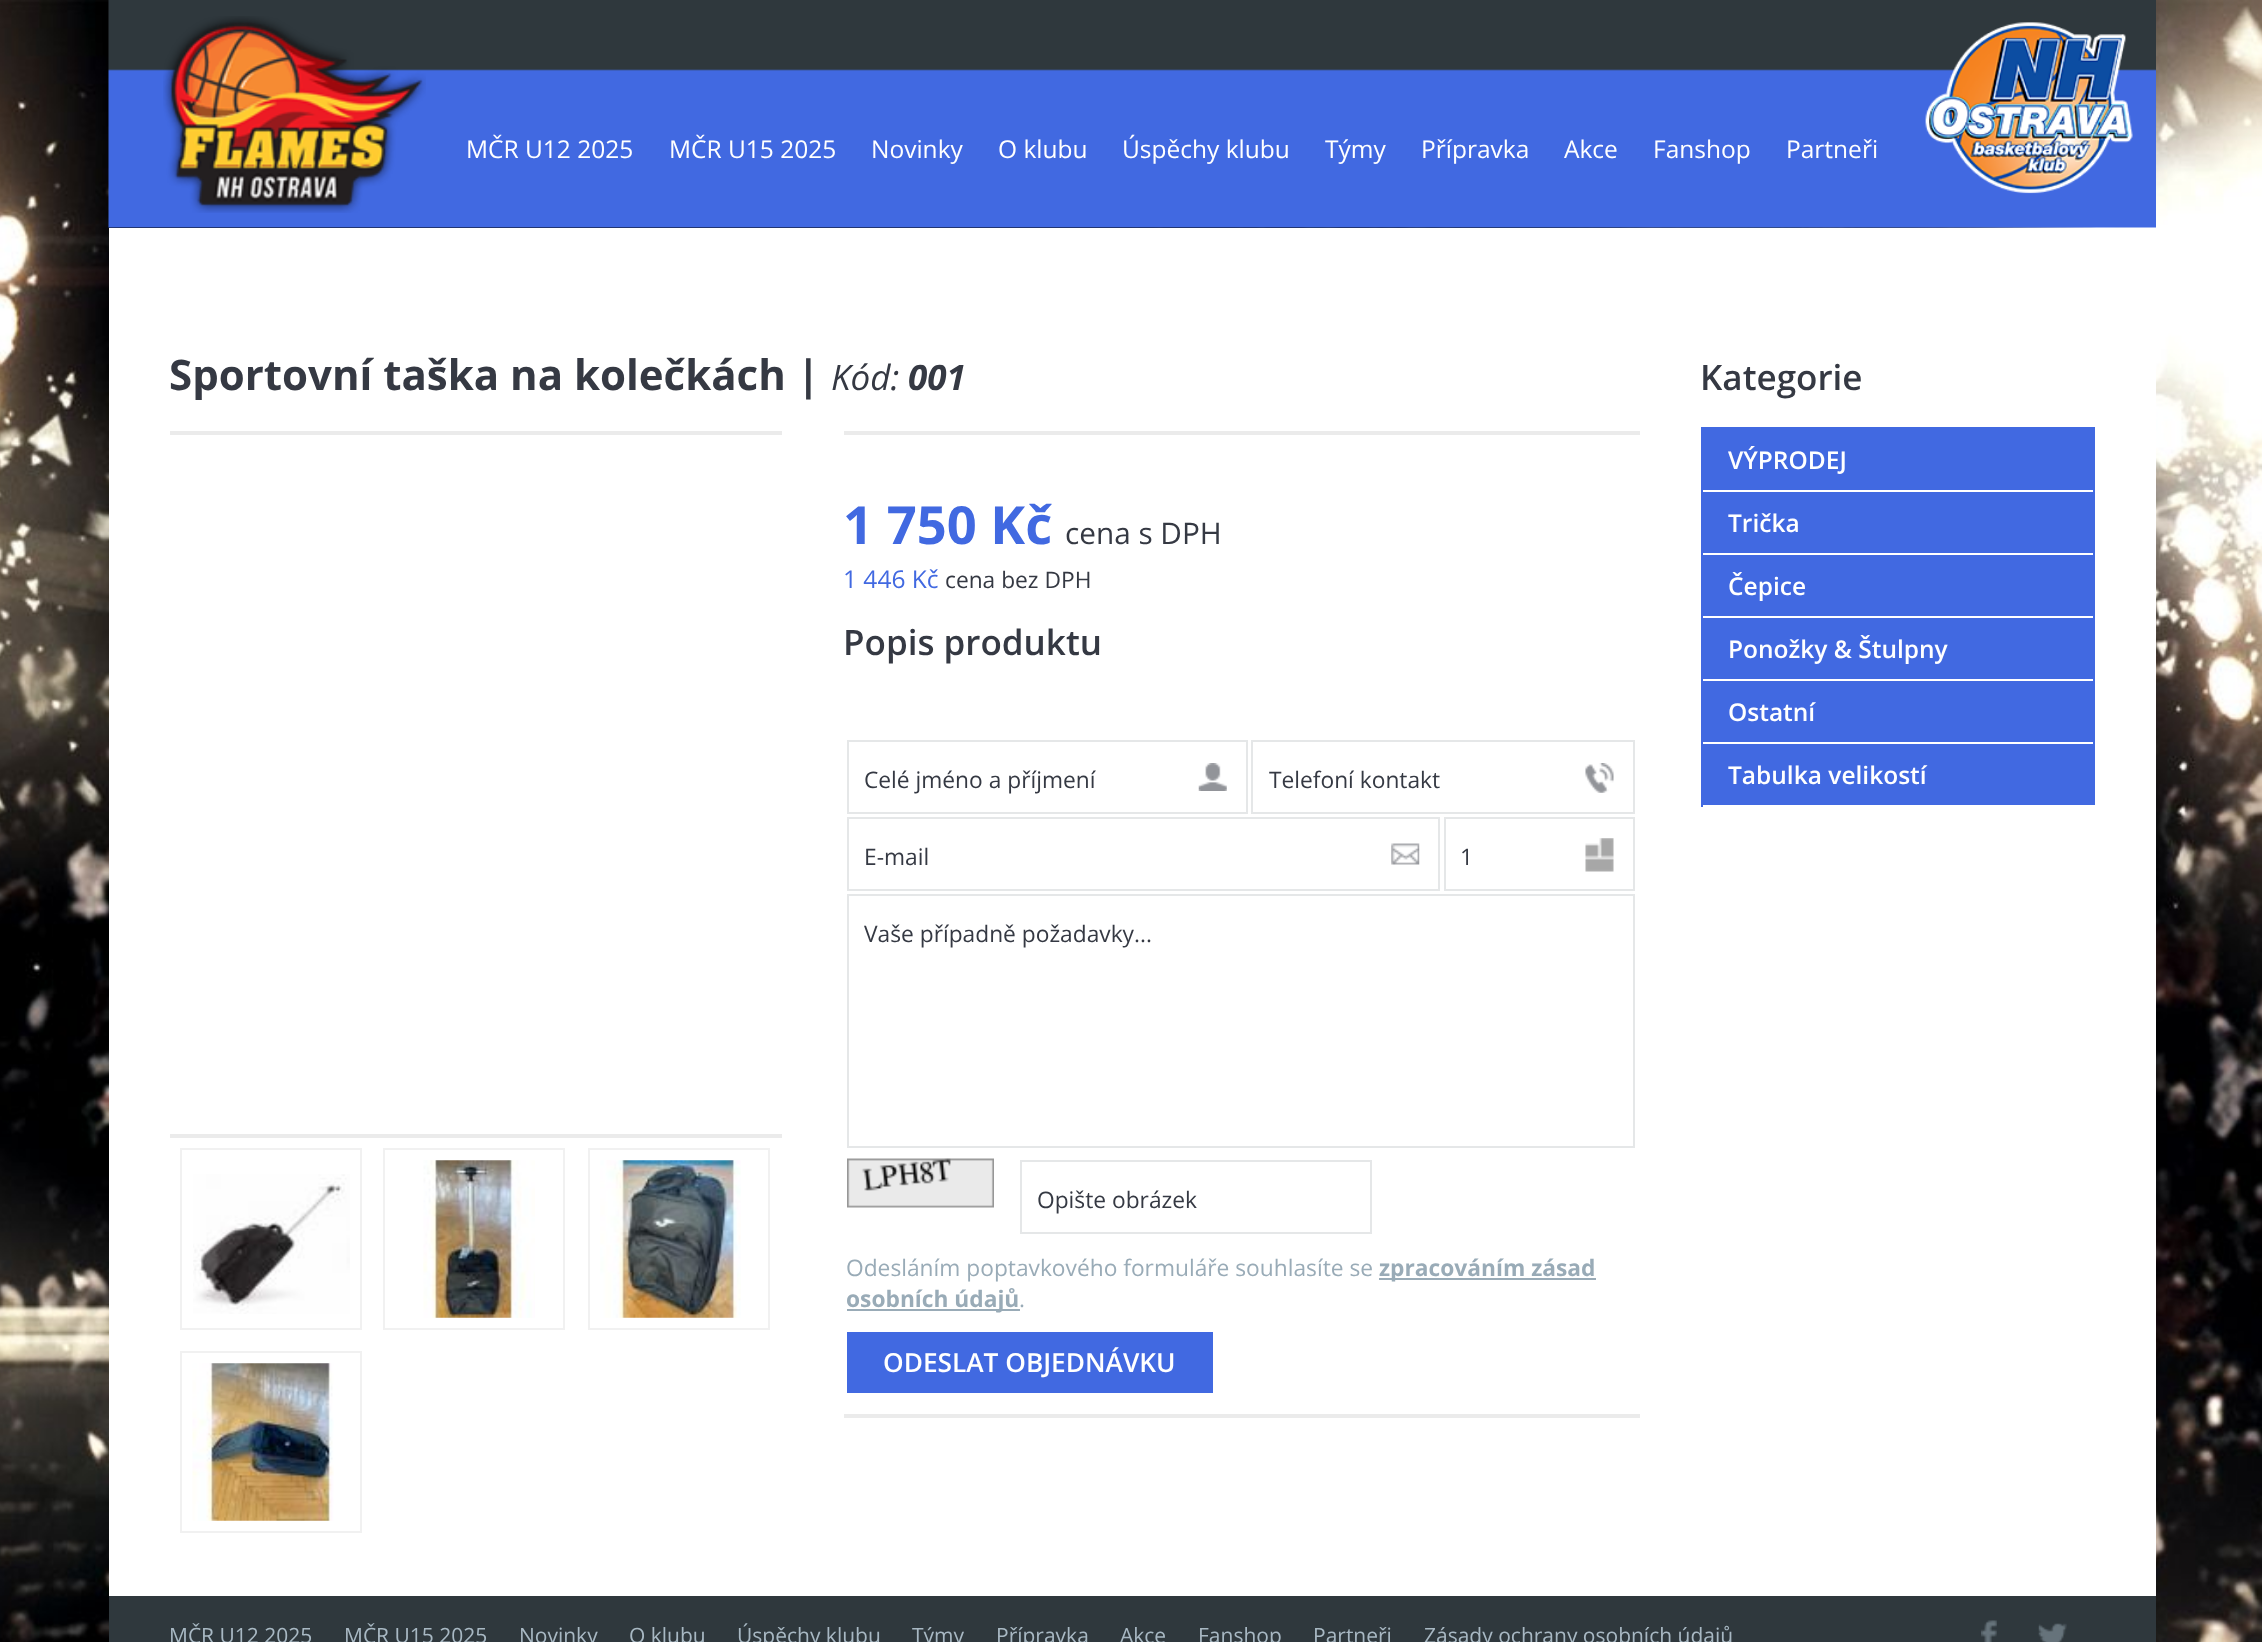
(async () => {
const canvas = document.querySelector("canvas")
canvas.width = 2262
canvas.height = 1642
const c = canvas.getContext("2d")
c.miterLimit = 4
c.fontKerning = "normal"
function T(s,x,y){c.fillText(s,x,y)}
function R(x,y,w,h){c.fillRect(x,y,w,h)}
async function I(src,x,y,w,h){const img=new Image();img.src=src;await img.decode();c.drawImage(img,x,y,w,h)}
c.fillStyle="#fff"
R(0,0,2262,1642)
await I("1.png",0,0,2262,1642)
await I("2.png",108,0,2048,228)
await I("3.png",163,16,263,197)
c.font="24.5px Open Sans"
T("MČR U12 2025",466,158)
T("MČR U15 2025",669,158)
T("Novinky",871,158)
T("O klubu",998,158)
T("Úspěchy klubu",1122,158)
T("Týmy",1325,158)
T("Přípravka",1421,158)
T("Akce",1564,158)
T("Fanshop",1653,158)
T("Partneři",1786,158)
await I("4.png",1925,22,208,172)
R(109,228,2047,1368)
c.font="bold 42px Open Sans"
c.fillStyle="#353943"
T("Sportovní taška na kolečkách |",169,390)
c.font="italic 35px Open Sans"
T("Kód:",831,390)
c.font="italic bold 35px Open Sans"
T("001",908,390)
c.fillStyle="#ebebeb"
R(170,431,612,4)
R(170,1134,612,4)
c.strokeStyle="#f1f1f1"
c.lineWidth=2
c.strokeRect(181,1149,180,180)
await I("5.png",193,1174,157,140)
c.strokeRect(384,1149,180,180)
await I("6.png",423,1160,112,158)
c.strokeRect(589,1149,180,180)
await I("7.png",600,1160,141,158)
c.strokeRect(181,1352,180,180)
await I("8.png",192,1363,142,158)
R(844,431,796,4)
R(844,1414,796,4)
c.font="bold 52.5px Open Sans"
c.fillStyle="#4169e1"
T("1 750 Kč",843,544)
c.font="29.75px Open Sans"
c.fillStyle="#353943"
T("cena s DPH",1065,544)
c.font="24.5px Open Sans"
c.fillStyle="#4169e1"
T("1 446 Kč",843,588)
c.font="22.75px Open Sans"
c.fillStyle="#353943"
T("cena bez DPH",945,588)
c.font="600 35px Open Sans"
T("Popis produktu",843,655)
await I("9.png",1198,763,29,28)
c.strokeStyle="#e5e7e8"
c.strokeRect(848,741,399,72)
c.font="22.75px Open Sans"
T("Celé jméno a příjmení",864,788)
await I("10.png",1585,763,29,30)
c.strokeRect(1252,741,382,72)
T("Telefoní kontakt",1269,788)
await I("11.png",1391,843,29,22)
c.strokeRect(848,818,591,72)
T("E-mail",864,865)
await I("12.png",1585,838,29,34)
c.strokeRect(1445,818,189,72)
T("1",1460,865)
c.strokeRect(848,895,786,252)
T("Vaše případně požadavky...",864,942)
await I("13.png",847,1158,147,50)
c.strokeRect(1021,1161,350,72)
T("Opište obrázek",1037,1208)
c.fillStyle="#99abb7"
T("Odesláním poptavkového formuláře souhlasíte se",846,1276)
R(1379,1278,217,2)
c.font="bold 22.75px Open Sans"
T("zpracováním zásad",1379,1276)
R(847,1309,173,2)
T("osobních údajů",846,1307)
c.font="22.75px Open Sans"
T(".",1019,1307)
c.fillStyle="#4169e1"
R(847,1332,366,61)
c.font="600 26.25px Open Sans"
c.fillStyle="#fff"
T("ODESLAT OBJEDNÁVKU",883,1372)
c.font="600 35px Open Sans"
c.fillStyle="#353943"
T("Kategorie",1700,390)
c.fillStyle="#4169e1"
R(1703,427,392,378)
R(1701,427,2,65)
c.font="600 24.5px Open Sans"
c.fillStyle="#fff"
T("VÝPRODEJ",1728,469)
R(1701,490,394,2)
c.fillStyle="#4169e1"
R(2093,490,2,2)
R(1701,490,2,65)
c.fillStyle="#fff"
T("Trička",1728,532)
R(1701,553,394,2)
c.fillStyle="#4169e1"
R(2093,553,2,2)
R(1701,553,2,65)
c.fillStyle="#fff"
T("Čepice",1728,595)
R(1701,616,394,2)
c.fillStyle="#4169e1"
R(2093,616,2,2)
R(1701,616,2,65)
c.fillStyle="#fff"
T("Ponožky & Štulpny",1728,658)
R(1701,679,394,2)
c.fillStyle="#4169e1"
R(2093,679,2,2)
R(1701,679,2,65)
c.fillStyle="#fff"
T("Ostatní",1728,721)
R(1701,742,394,2)
c.fillStyle="#4169e1"
R(2093,742,2,65)
c.fillStyle="#fff"
R(2093,805,2,2)
c.fillStyle="#4169e1"
R(1701,742,2,65)
c.fillStyle="#fff"
T("Tabulka velikostí",1728,784)
c.fillStyle="#2f383d"
R(109,1596,2047,46)
c.font="21px Open Sans"
c.fillStyle="#a8b8c3"
T("MČR U12 2025",169,1643)
T("MČR U15 2025",344,1643)
T("Novinky",519,1643)
T("O klubu",629,1643)
T("Úspěchy klubu",737,1643)
T("Týmy",912,1643)
T("Přípravka",996,1643)
T("Akce",1120,1643)
T("Fanshop",1198,1643)
T("Partneři",1313,1643)
T("Zásady ochrany osobních údajů",1424,1643)
await I("14.png",1981,1620,16,22)
await I("15.png",2038,1623,29,19)
})()
